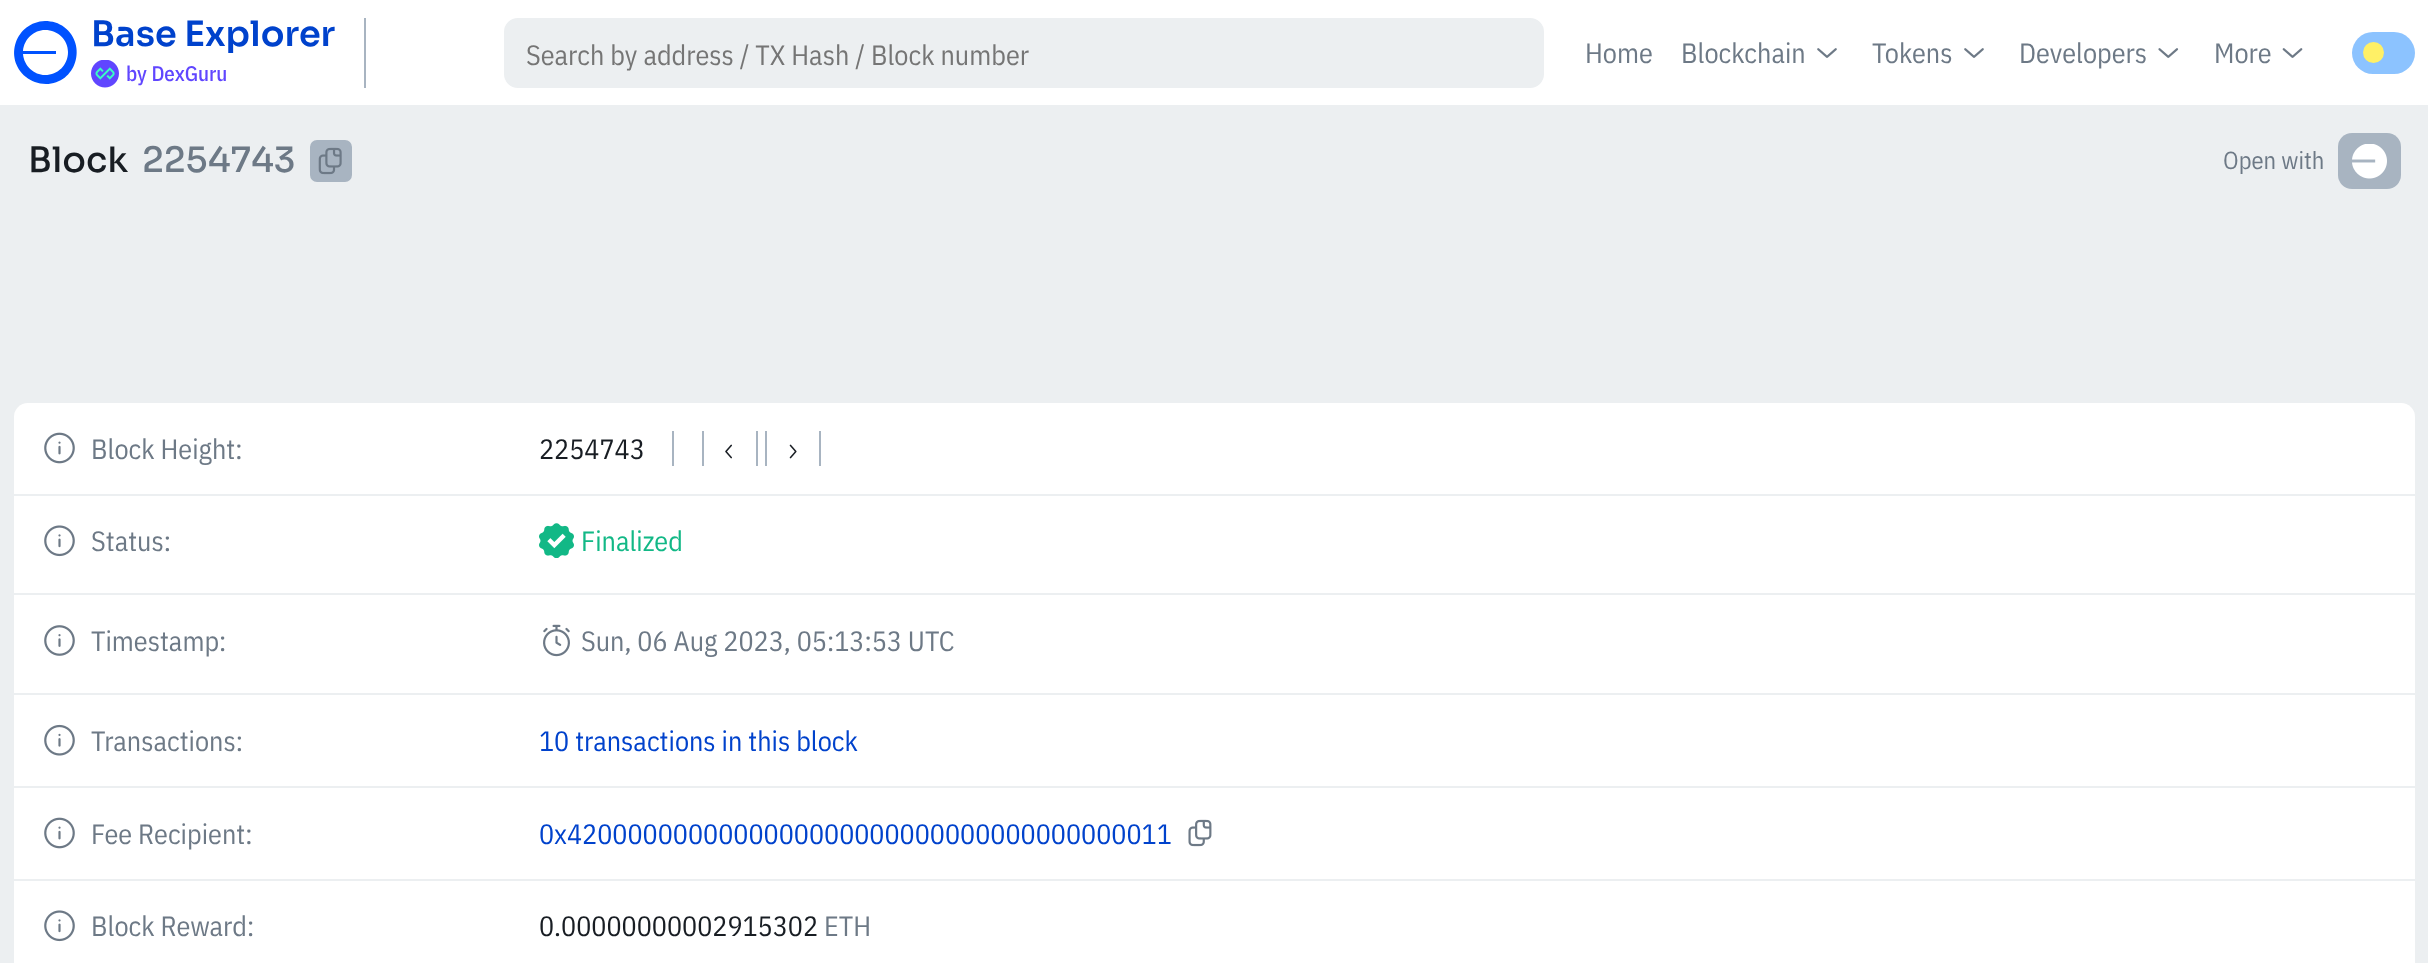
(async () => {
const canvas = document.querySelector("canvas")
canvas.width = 2428
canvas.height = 963
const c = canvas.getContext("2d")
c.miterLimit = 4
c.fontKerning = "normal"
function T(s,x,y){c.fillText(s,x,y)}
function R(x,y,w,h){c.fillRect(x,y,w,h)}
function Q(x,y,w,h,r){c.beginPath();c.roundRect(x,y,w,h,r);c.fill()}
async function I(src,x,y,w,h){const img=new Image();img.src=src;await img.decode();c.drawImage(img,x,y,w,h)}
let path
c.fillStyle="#eceff1"
R(0,0,2428,963)
c.fillStyle="#fff"
R(0,0,2428,105)
c.fillStyle="#a8b4c1"
R(364,18,2,70)
c.fillStyle="#0052ff"
path = new Path2D("M46 84c30 0 42-39 18-57c-5-4-12-6-19-6c-29 1-42 37-19 56c5 4 12 7 20 7z")
c.fill(path)
c.fillStyle="#fff"
path = new Path2D("M45 75c13 0 23-10 23-23c0-12-10-22-23-22c-11 0-21 9-22 21h33v3h-33c1 12 11 21 22 21z")
c.fill(path,"evenodd")
c.font="600 35px Sora"
c.fillStyle="#0042cc"
T("Base Explorer",91,46)
await I("1.png",91,60,28,28)
c.font="500 21px IBM Plex Sans Condensed"
c.fillStyle="#6046ff"
T("by DexGuru",126,81)
c.fillStyle="#eceff1"
c.beginPath()
c.roundRect(505,19,1038,68,13)
c.fill()
c.strokeStyle="#eceff1"
c.lineWidth=2
c.stroke()
c.font="28px IBM Plex Sans Condensed"
c.fillStyle="#757575"
T("Search by address / TX Hash / Block number",526,65)
c.fillStyle="#6d7986"
T("Home",1585,63)
T("Blockchain",1681,63)
await I("2.png",1817,48,20,10)
T("Tokens",1872,63)
await I("2.png",1964,48,20,10)
T("Developers",2019,63)
await I("3.png",2158,48,21,10)
T("More",2214,63)
await I("4.png",2282,48,21,10)
c.fillStyle="#8cc3ff"
Q(2352,32,63,42,21)
c.fillStyle="#fff066"
c.beginPath()
c.arc(2373.5,52.5,10.5,0,7)
c.fill()
c.font="500 35px Sora"
c.fillStyle="#181d23"
T("Block",28,172)
c.fillStyle="#6d7986"
T("2254743",142,172)
c.fillStyle="#a8b4c1"
c.beginPath()
c.roundRect(311,141,40,40,6)
c.fill()
c.strokeStyle="#a8b4c1"
c.stroke()
await I("5.png",318,147,24,28)
c.font="24.5px IBM Plex Sans Condensed"
c.fillStyle="#6d7986"
T("Open with",2223,169)
c.fillStyle="#a8b4c1"
Q(2338,133,63,56,14)
await I("6.png",2352,144,35,35)
c.fillStyle="#fff"
Q(14,403,2401,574,14)
c.fillStyle="#eceff1"
R(14,494,2401,2)
await I("7.png",44,432,31,32)
c.font="28px IBM Plex Sans Condensed"
c.fillStyle="#6d7986"
T("Block Height:",91,459)
c.fillStyle="#181d23"
T("2254743",539,459)
c.fillStyle="#a8b4c1"
R(672,431,2,35)
c.save()
c.beginPath()
c.rect(511,431,1876,35)
c.clip()
c.beginPath()
c.roundRect(703,425,54,54,6)
c.stroke()
c.restore()
await I("8.png",725,444,7,15)
c.save()
c.beginPath()
c.rect(511,431,1876,35)
c.clip()
c.beginPath()
c.roundRect(766,425,54,54,6)
c.stroke()
c.restore()
await I("9.png",789,444,8,15)
c.fillStyle="#eceff1"
R(14,593,2401,2)
await I("10.png",44,525,31,32)
c.fillStyle="#6d7986"
T("Status:",91,551)
await I("11.png",539,523,35,35)
c.fillStyle="#12b886"
T("Finalized",581,551)
c.fillStyle="#eceff1"
R(14,693,2401,2)
await I("12.png",44,625,31,31)
c.fillStyle="#6d7986"
T("Timestamp:",91,651)
await I("13.png",543,624,27,33)
T("Sun, 06 Aug 2023, 05:13:53 UTC",581,651)
c.fillStyle="#eceff1"
R(14,786,2401,2)
await I("14.png",44,724,31,32)
c.fillStyle="#6d7986"
T("Transactions:",91,751)
c.fillStyle="#0042cc"
T("10 transactions in this block",539,751)
c.fillStyle="#eceff1"
R(14,879,2401,2)
await I("7.png",44,817,31,32)
c.fillStyle="#6d7986"
T("Fee Recipient:",91,844)
c.fillStyle="#0042cc"
T("0x4200000000000000000000000000000000000011",539,844)
await I("15.png",1188,819,24,28)
await I("10.png",44,910,31,32)
c.fillStyle="#6d7986"
T("Block Reward:",91,936)
c.fillStyle="#181d23"
T("0.00000000002915302",539,936)
c.fillStyle="#6d7986"
T("ETH",824,936)
})()
